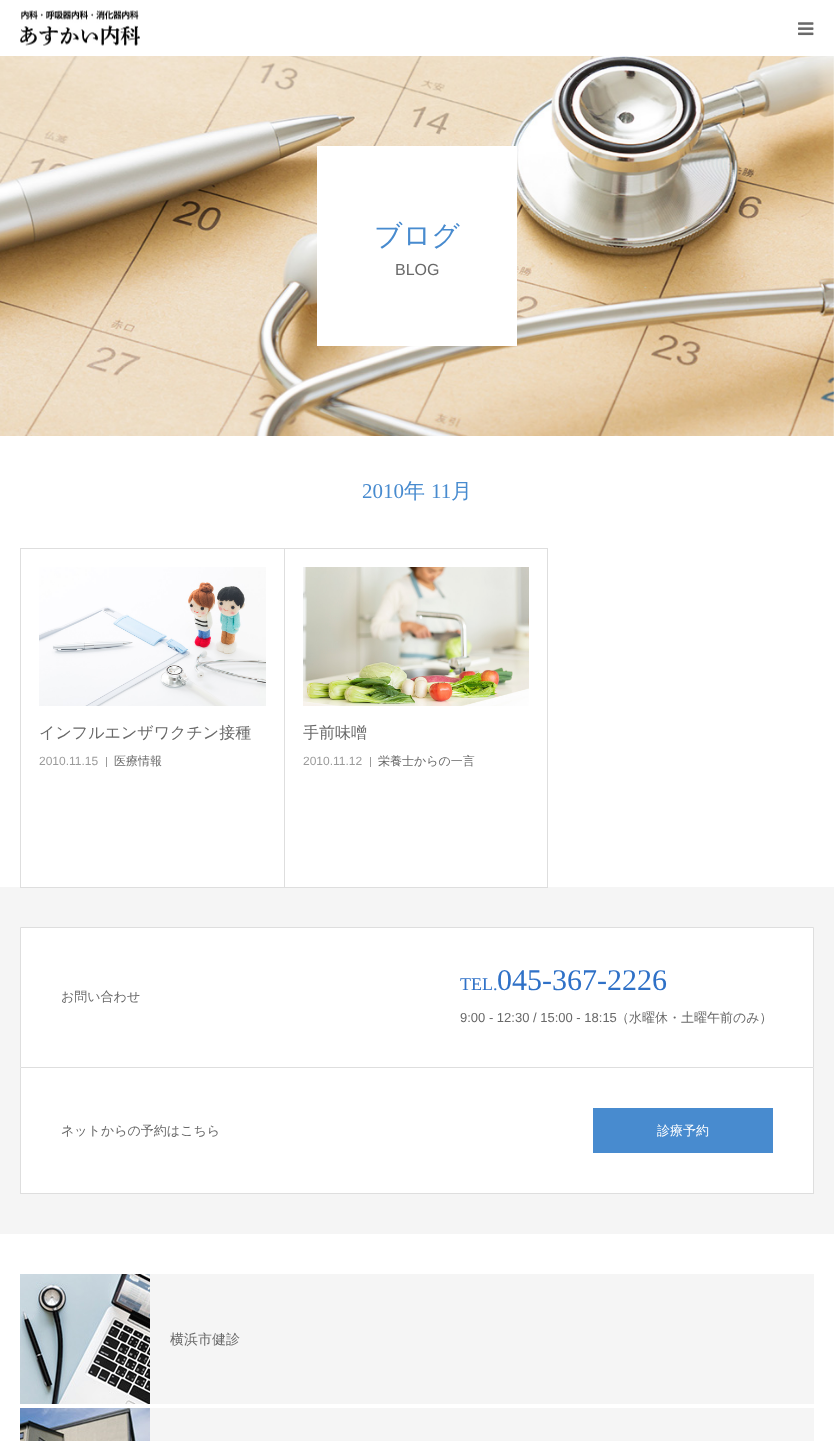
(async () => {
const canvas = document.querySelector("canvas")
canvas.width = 834
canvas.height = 1441
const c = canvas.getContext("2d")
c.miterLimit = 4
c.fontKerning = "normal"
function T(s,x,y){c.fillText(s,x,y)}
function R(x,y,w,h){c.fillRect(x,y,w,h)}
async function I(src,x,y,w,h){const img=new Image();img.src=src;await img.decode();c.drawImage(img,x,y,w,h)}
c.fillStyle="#fff"
R(0,0,834,1441)
await I("1.png",20,10,120,36)
await I("2.png",798,22,16,14)
await I("3.png",0,56,834,380)
R(317,146,200,200)
c.font="500 28px WenQuanYi Zen Hei"
c.fillStyle="#488bcf"
T("ブログ",374,245)
c.font="16px Liberation Sans"
c.fillStyle="#696969"
T("BLOG",395,275)
c.font="21px Liberation Serif"
c.fillStyle="#488bcf"
T("2010",362,498)
c.font="500 21px WenQuanYi Zen Hei"
T("年",404,498)
c.font="21px Liberation Serif"
T("11",431,498)
c.font="500 21px WenQuanYi Zen Hei"
T("月",451,498)
c.fillStyle="#f5f5f5"
R(0,887,834,347)
c.strokeStyle="#dedede"
c.strokeRect(20.5,548.5,264,339)
await I("4.png",39,567,227,139)
c.font="500 16px WenQuanYi Zen Hei"
c.fillStyle="#696969"
T("インフルエンザワクチン接種",39,738)
c.font="12px Liberation Sans"
c.fillStyle="#9b9b9b"
T("2010.11.15",39,765)
R(106,757,1,10)
c.font="500 12px WenQuanYi Zen Hei"
c.fillStyle="#696969"
T("医療情報",114,765)
c.strokeRect(284.5,548.5,263,339)
await I("5.png",303,567,226,139)
c.font="500 16px WenQuanYi Zen Hei"
T("手前味噌",303,738)
c.font="12px Liberation Sans"
c.fillStyle="#9b9b9b"
T("2010.11.12",303,765)
R(370,757,1,10)
c.font="500 12px WenQuanYi Zen Hei"
c.fillStyle="#696969"
T("栄養士からの一言",378,765)
c.fillStyle="#fff"
c.beginPath()
c.rect(20.5,927.5,793,140)
c.fill()
c.stroke()
c.font="500 13px WenQuanYi Zen Hei"
c.fillStyle="#696969"
T("お問い合わせ",61,1001)
c.font="18px Liberation Serif"
c.fillStyle="#2f71c7"
T("TEL.",460,990)
c.font="30px Liberation Serif"
T("045-367-2226",497,990)
c.font="13px Liberation Sans"
c.fillStyle="#696969"
T("9:00 - 12:30 / 15:00 - 18:15",460,1022)
c.font="500 13px WenQuanYi Zen Hei"
T("（水曜休・土曜午前のみ）",616,1022)
c.fillStyle="#fff"
R(21,1068,792,125)
c.fillStyle="#dedede"
R(813,1068,1,126)
R(20,1193,794,1)
R(20,1068,1,126)
c.fillStyle="#696969"
T("ネットからの予約はこちら",61,1135)
c.fillStyle="#488bcf"
R(593,1108,180,45)
c.fillStyle="#fff"
T("診療予約",657,1135)
c.fillStyle="#f5f5f5"
R(150,1274,664,130)
await I("6.png",20,1274,130,130)
c.font="500 14px WenQuanYi Zen Hei"
c.fillStyle="#696969"
T("横浜市健診",170,1344)
c.fillStyle="#f5f5f5"
R(150,1408,664,33)
await I("7.png",20,1408,130,33)
})()
